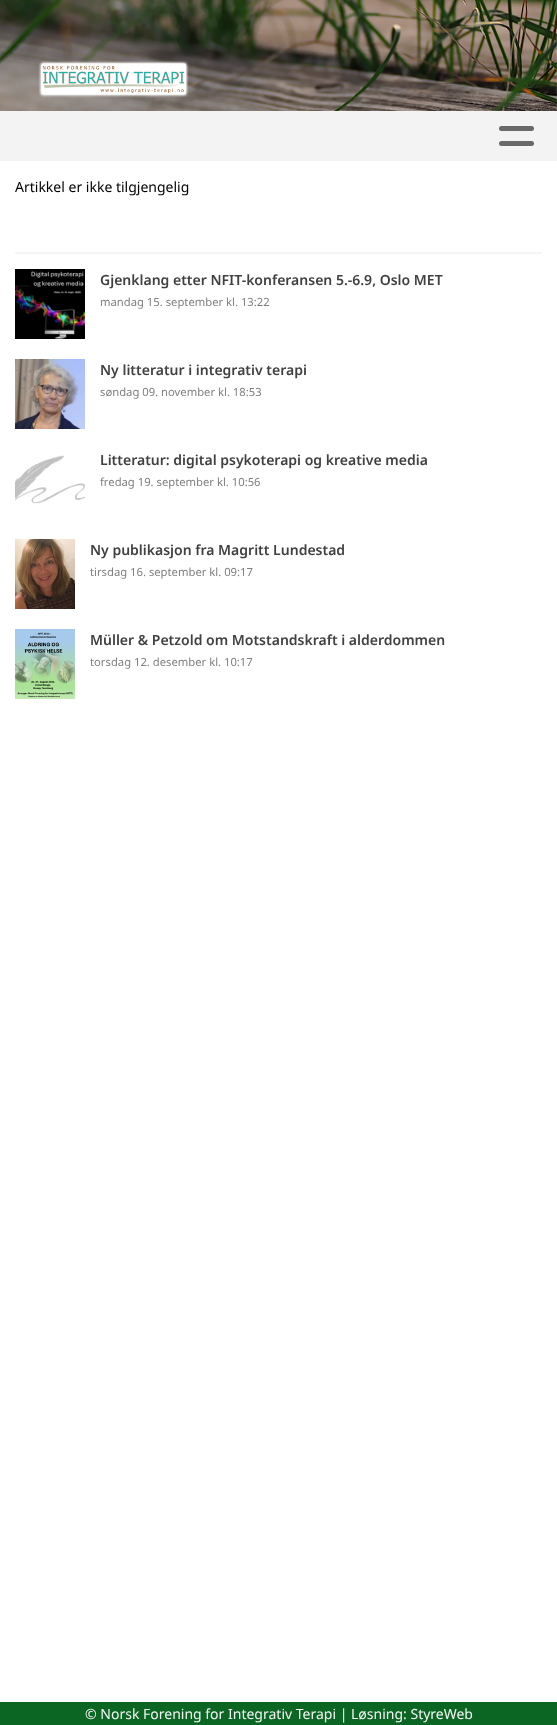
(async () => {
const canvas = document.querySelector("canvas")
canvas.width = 557
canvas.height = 1725
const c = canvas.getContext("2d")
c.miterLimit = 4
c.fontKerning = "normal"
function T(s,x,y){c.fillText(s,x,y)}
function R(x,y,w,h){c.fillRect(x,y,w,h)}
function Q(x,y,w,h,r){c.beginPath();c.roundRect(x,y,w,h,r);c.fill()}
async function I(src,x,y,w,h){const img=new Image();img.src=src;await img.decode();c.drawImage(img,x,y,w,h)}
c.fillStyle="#fff"
R(0,0,557,1725)
await I("1.png",0,0,557,111)
c.fillStyle="#f3f3f3"
R(0,111,557,50)
c.fillStyle="#696969"
Q(499,126,35,5,2.5)
Q(499,141,35,5,2.5)
c.font="14px Noto Sans"
c.fillStyle="#000"
T("Artikkel er ikke tilgjengelig",15,192)
c.fillStyle="#f5f5f5"
R(15,252,527,2)
await I("2.png",15,269,70,70)
c.font="600 14px Noto Sans"
c.fillStyle="#414141"
T("Gjenklang etter NFIT-konferansen 5.-6.9, Oslo MET",100,285)
c.font="11.25px Noto Sans"
c.fillStyle="#808080"
T("mandag 15. september kl. 13:22",100,306)
await I("3.png",15,359,70,70)
c.font="600 14px Noto Sans"
c.fillStyle="#414141"
T("Ny litteratur i integrativ terapi",100,375)
c.font="11.25px Noto Sans"
c.fillStyle="#808080"
T("søndag 09. november kl. 18:53",100,396)
await I("4.png",15,455,70,49)
c.font="600 14px Noto Sans"
c.fillStyle="#414141"
T("Litteratur: digital psykoterapi og kreative media",100,465)
c.font="11.25px Noto Sans"
c.fillStyle="#808080"
T("fredag 19. september kl. 10:56",100,486)
await I("5.png",15,539,60,70)
c.font="600 14px Noto Sans"
c.fillStyle="#414141"
T("Ny publikasjon fra Magritt Lundestad",90,555)
c.font="11.25px Noto Sans"
c.fillStyle="#808080"
T("tirsdag 16. september kl. 09:17",90,576)
await I("6.png",15,629,60,70)
c.font="600 14px Noto Sans"
c.fillStyle="#414141"
T("Müller & Petzold om Motstandskraft i alderdommen",90,645)
c.font="11.25px Noto Sans"
c.fillStyle="#808080"
T("torsdag 12. desember kl. 10:17",90,666)
c.fillStyle="#0b6623"
R(0,1702,557,23)
c.font="14px Noto Sans"
c.fillStyle="#f5f5f5"
T("© Norsk Forening for Integrativ Terapi | Løsning: StyreWeb",85,1719)
})()
